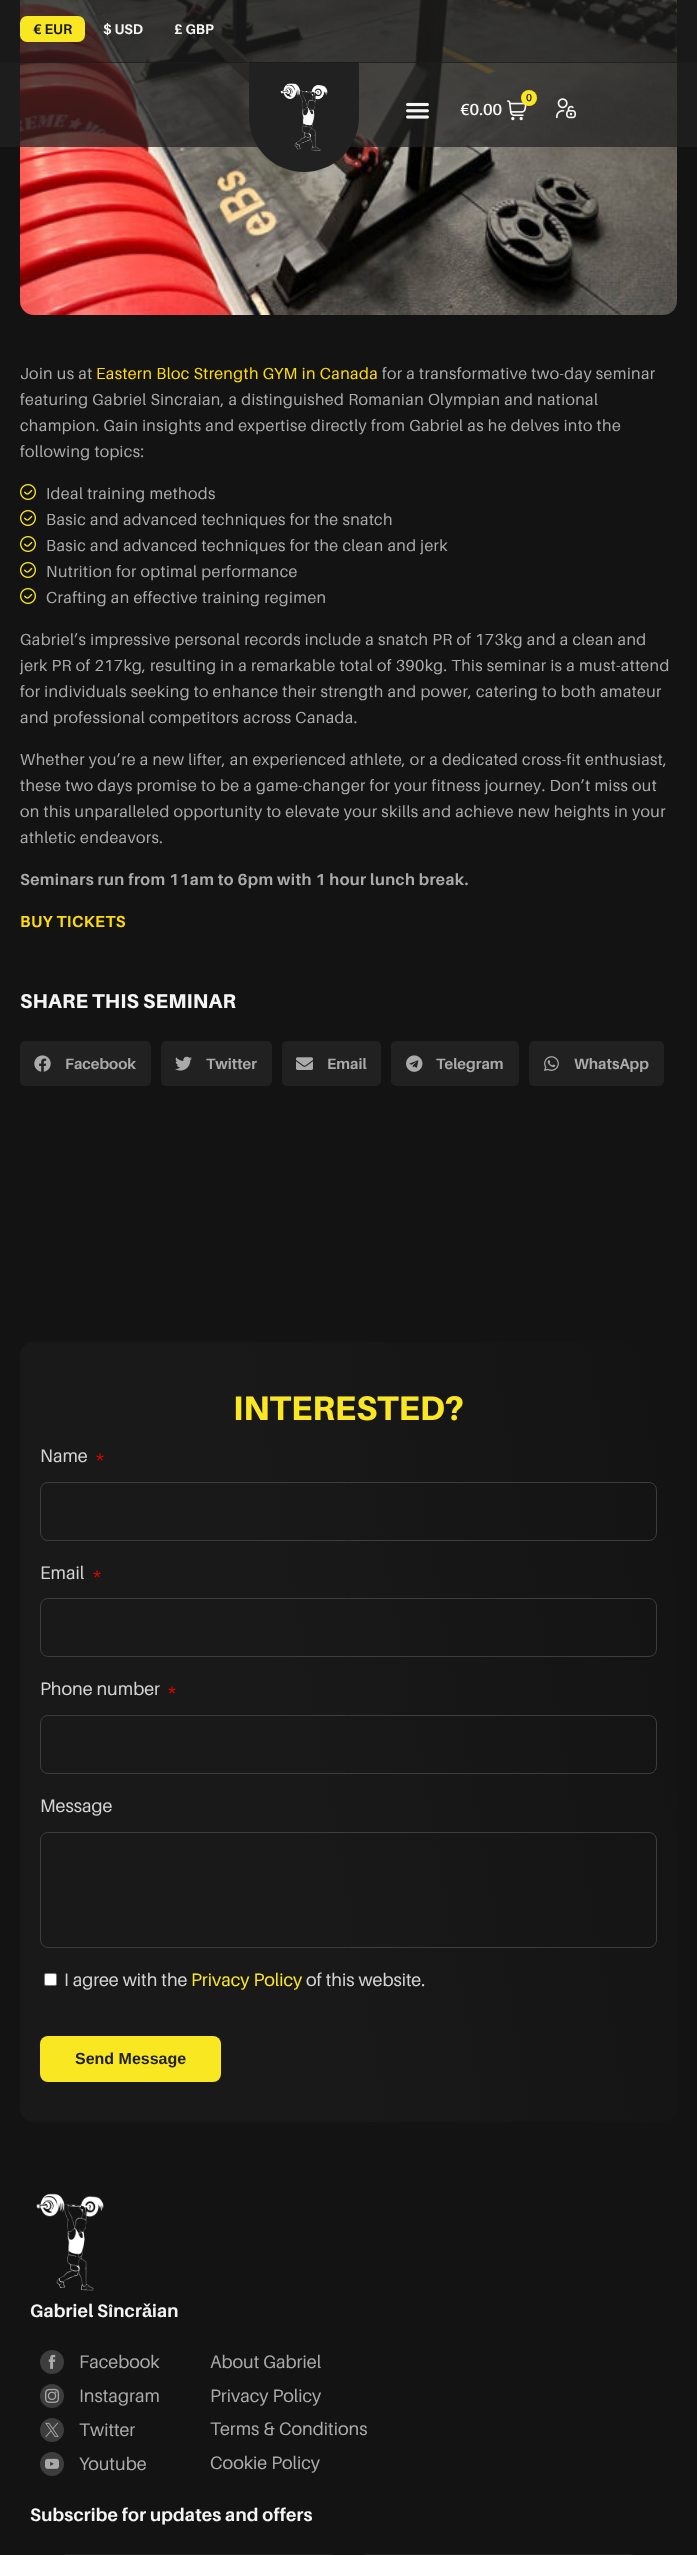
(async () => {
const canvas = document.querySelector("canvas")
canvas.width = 697
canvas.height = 2555
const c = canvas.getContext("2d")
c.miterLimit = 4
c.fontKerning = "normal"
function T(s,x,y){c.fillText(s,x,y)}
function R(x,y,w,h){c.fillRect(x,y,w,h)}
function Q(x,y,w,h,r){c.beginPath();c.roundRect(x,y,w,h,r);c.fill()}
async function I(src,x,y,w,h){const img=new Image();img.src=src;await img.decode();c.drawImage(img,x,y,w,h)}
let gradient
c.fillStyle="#131313"
R(0,0,697,2555)
await I("5.png",20,0,657,315)
c.fillStyle="#212121ba"
R(0,62,697,85)
c.fillStyle="#212121"
c.beginPath()
c.roundRect(249,62,110,110,[0,0,55,55])
c.fill()
c.fillStyle="#1b1b1bcc"
R(0,0,697,63)
c.fillStyle="#f9e721"
Q(20,16,65,26,7)
c.font="bold 14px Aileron"
c.fillStyle="#181818"
T("€ EUR",33,34)
c.fillStyle="#f5f5f5"
T("$ USD",103,34)
T("£ GBP",174,34)
await I("1.png",280,83,48,68)
c.fillStyle="#0000000d"
R(399,92,1,1)
await I("2.png",406,102,23,17)
await I("3.png",507,100,20,21)
c.fillStyle="#f9e721"
c.beginPath()
c.arc(529,98,8,0,7)
c.fill()
c.font="600 10px Aileron"
c.fillStyle="#181818"
T("0",526,101)
c.font="600 16px Aileron"
c.fillStyle="#f5f5f5"
T("€0.00",460,115)
await I("4.png",556,98,20,21)
c.letterSpacing="0.4px"
c.font="16px Aileron"
c.fillStyle="#aaa"
T("Join us at",20,379)
c.fillStyle="#ffdc04"
T("Eastern Bloc Strength GYM in Canada",96,379)
c.fillStyle="#aaa"
T("for a transformative two-day seminar",382,379)
T("featuring Gabriel Sincraian, a distinguished Romanian Olympian and national",20,405)
T("champion. Gain insights and expertise directly from Gabriel as he delves into the",20,431)
T("following topics:",20,457)
await I("6.png",20,484,16,16)
T("Ideal training methods",46,499)
await I("6.png",20,510,16,16)
T("Basic and advanced techniques for the snatch",46,525)
await I("6.png",20,536,16,16)
T("Basic and advanced techniques for the clean and jerk",46,551)
await I("6.png",20,562,16,16)
T("Nutrition for optimal performance",46,577)
await I("6.png",20,588,16,16)
T("Crafting an effective training regimen",46,603)
T("Gabriel’s impressive personal records include a snatch PR of 173kg and a clean and",20,645)
T("jerk PR of 217kg, resulting in a remarkable total of 390kg. This seminar is a must-attend",20,671)
T("for individuals seeking to enhance their strength and power, catering to both amateur",20,697)
T("and professional competitors across Canada.",20,723)
T("Whether you’re a new lifter, an experienced athlete, or a dedicated cross-fit enthusiast,",20,765)
T("these two days promise to be a game-changer for your fitness journey. Don’t miss out",20,791)
T("on this unparalleled opportunity to elevate your skills and achieve new heights in your",20,817)
T("athletic endeavors.",20,843)
c.font="bold 16px Aileron"
T("Seminars run from 11am to 6pm with 1 hour lunch break.",20,885)
c.fillStyle="#ffdc04"
T("BUY TICKETS",20,927)
c.letterSpacing="0.2px"
c.font="900 20px Aileron"
c.fillStyle="#f5f5f5"
T("SHARE THIS SEMINAR",20,1008)
c.fillStyle="#212121"
Q(20,1041,131,45,5)
await I("7.png",34,1055,17,17)
c.letterSpacing="0px"
c.font="bold 15px Aileron"
c.fillStyle="#aaa"
T("Facebook",65,1069)
c.fillStyle="#212121"
Q(161,1041,111,45,5)
await I("8.png",175,1056,17,15)
c.fillStyle="#aaa"
T("Twitter",206,1069)
c.fillStyle="#212121"
Q(282,1041,99,45,5)
await I("9.png",296,1057,17,13)
c.fillStyle="#aaa"
T("Email",327,1069)
c.fillStyle="#212121"
Q(391,1041,128,45,5)
await I("10.png",406,1055,17,17)
c.fillStyle="#aaa"
T("Telegram",436,1069)
c.fillStyle="#212121"
Q(529,1041,135,45,5)
await I("11.png",544,1056,15,15)
c.fillStyle="#aaa"
T("WhatsApp",574,1069)
gradient = c.createLinearGradient(-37,1800,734,1664)
gradient.addColorStop(.42,"#191919")
gradient.addColorStop(1,"#131313")
c.fillStyle = gradient
Q(20,1342,657,780,14)
c.font="900 34px Aileron"
c.fillStyle="#fae722"
T("INTERESTED?",233,1420)
c.font="18px Aileron"
c.fillStyle="#d4d4d4"
T("Name",40,1462)
c.fillStyle="#f00"
T("*",95,1462)
c.beginPath()
c.roundRect(40.5,1482.5,616,58,7.5)
c.strokeStyle="#3d3d3d"
c.stroke()
c.fillStyle="#d4d4d4"
T("Email",40,1579)
c.fillStyle="#f00"
T("*",92,1579)
c.beginPath()
c.roundRect(40.5,1598.5,616,58,7.5)
c.stroke()
c.fillStyle="#d4d4d4"
T("Phone number",40,1695)
c.fillStyle="#f00"
T("*",167,1695)
c.beginPath()
c.roundRect(40.5,1715.5,616,58,7.5)
c.stroke()
c.fillStyle="#d4d4d4"
T("Message",40,1812)
c.beginPath()
c.roundRect(40.5,1832.5,616,115,7.5)
c.stroke()
c.fillStyle="#fff"
c.beginPath()
c.roundRect(44.5,1973.5,12,12,1.5)
c.fill()
c.strokeStyle="#767676"
c.stroke()
c.fillStyle="#d4d4d4"
T("I agree with the",64,1986)
c.fillStyle="#fae722"
T("Privacy Policy",191,1986)
c.fillStyle="#d4d4d4"
T("of this website.",306,1986)
c.fillStyle="#f9e721"
Q(40,2036,181,46,8)
c.font="bold 16px Liberation Sans"
c.fillStyle="#212121"
T("Send Message",75,2064)
await I("12.png",36,2193,68,98)
c.letterSpacing="0.2px"
c.font="bold 18px Aileron"
c.fillStyle="#f5f5f5"
T("Gabriel Sîncr",30,2317)
c.font="bold 18px Liberation Sans"
T("ǎ",142,2317)
c.font="bold 18px Aileron"
T("ian",152,2317)
c.fillStyle="#3d3d3d"
c.beginPath()
c.arc(52,2362,12,0,7)
c.fill()
await I("13.png",48,2354,8,15)
c.letterSpacing="0px"
c.font="18px Aileron"
c.fillStyle="#aaa"
T("Facebook",79,2368)
c.fillStyle="#3d3d3d"
c.beginPath()
c.arc(52,2396,12,0,7)
c.fill()
await I("14.png",45,2388,14,15)
c.fillStyle="#aaa"
T("Instagram",79,2402)
c.fillStyle="#3d3d3d"
c.beginPath()
c.arc(52,2430,12,0,7)
c.fill()
await I("15.png",45,2422,14,15)
c.fillStyle="#aaa"
T("Twitter",79,2436)
c.fillStyle="#3d3d3d"
c.beginPath()
c.arc(52,2464,12,0,7)
c.fill()
await I("16.png",45,2458,14,11)
c.fillStyle="#aaa"
T("Youtube",79,2470)
T("About Gabriel",210,2368)
T("Privacy Policy",210,2402)
T("Terms & Conditions",210,2435)
T("Cookie Policy",210,2469)
c.letterSpacing="0.2px"
c.font="bold 18px Aileron"
c.fillStyle="#f5f5f5"
T("Subscribe for updates and offers",30,2521)
c.fillStyle="#212121"
Q(59,2554,280,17,16)
Q(359,2554,280,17,16)
})()
